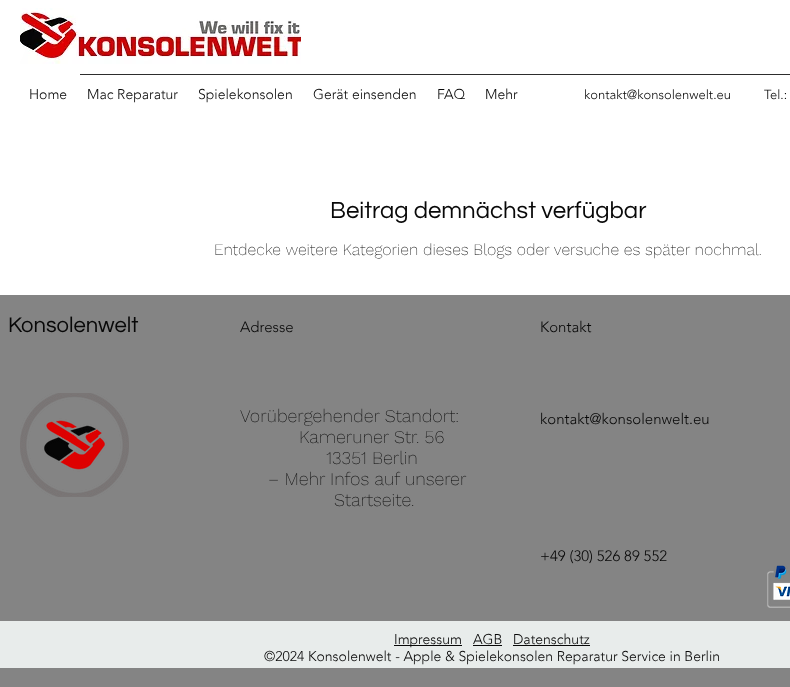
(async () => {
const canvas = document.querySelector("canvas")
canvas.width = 790
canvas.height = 687
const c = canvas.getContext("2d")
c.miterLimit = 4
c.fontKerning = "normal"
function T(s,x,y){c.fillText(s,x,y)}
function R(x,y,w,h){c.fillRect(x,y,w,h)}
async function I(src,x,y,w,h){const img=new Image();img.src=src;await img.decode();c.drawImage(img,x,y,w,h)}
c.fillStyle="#fff"
R(0,0,790,687)
await I("1.png",20,8,281,56)
c.fillStyle="#2d2d2d"
R(80,74,710,1)
c.font="300 14px 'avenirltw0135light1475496'"
c.fillStyle="#080808"
T("Home",29,99)
T("Mac Reparatur",87,99)
T("Spielekonsolen",198,99)
T("Gerät einsenden",313,99)
T("FAQ",437,99)
T("Mehr",485,99)
c.font="300 13px 'avenirltw0135light1475496'"
T("kontakt@konsolenwelt.eu",584,99)
T("Tel.:",764,99)
c.font="24px Questrial"
T("Beitrag demnächst verfügbar",330,218)
c.font="200 16px Work Sans"
T("Entdecke weitere Kategorien dieses Blogs oder versuche es später nochmal.",214,255)
c.fillStyle="#848484"
R(0,295,790,392)
c.font="22px Questrial"
c.fillStyle="#080808"
T("Konsolenwelt",8,332)
c.font="300 15px 'avenirltw0135light1475496'"
T("Adresse",240,332)
T("Kontakt",540,332)
await I("2.png",20,393,109,104)
c.font="200 18px Work Sans"
T("Vorübergehender Standort:",240,422)
T("Kameruner Str. 56",299,443)
T("13351 Berlin",326,464)
T("– Mehr Infos auf unserer",268,485)
T("Startseite.",334,506)
c.font="300 15px 'avenirltw0135light1475496'"
T("kontakt@konsolenwelt.eu",540,424)
T("+49 (30) 526 89 552",540,561)
await I("3.png",767,565,23,43)
c.fillStyle="#e8eceb"
R(0,621,790,47)
c.fillStyle="#080808"
R(394,645,68,1)
c.font="300 14px 'avenirltw0135light1475496'"
T("Impressum",394,644)
T("AGB",473,644)
R(473,645,29,1)
T("Datenschutz",513,644)
R(513,645,77,1)
T("©2024 Konsolenwelt - Apple & Spielekonsolen Reparatur Service in Berlin",264,661)
})()
